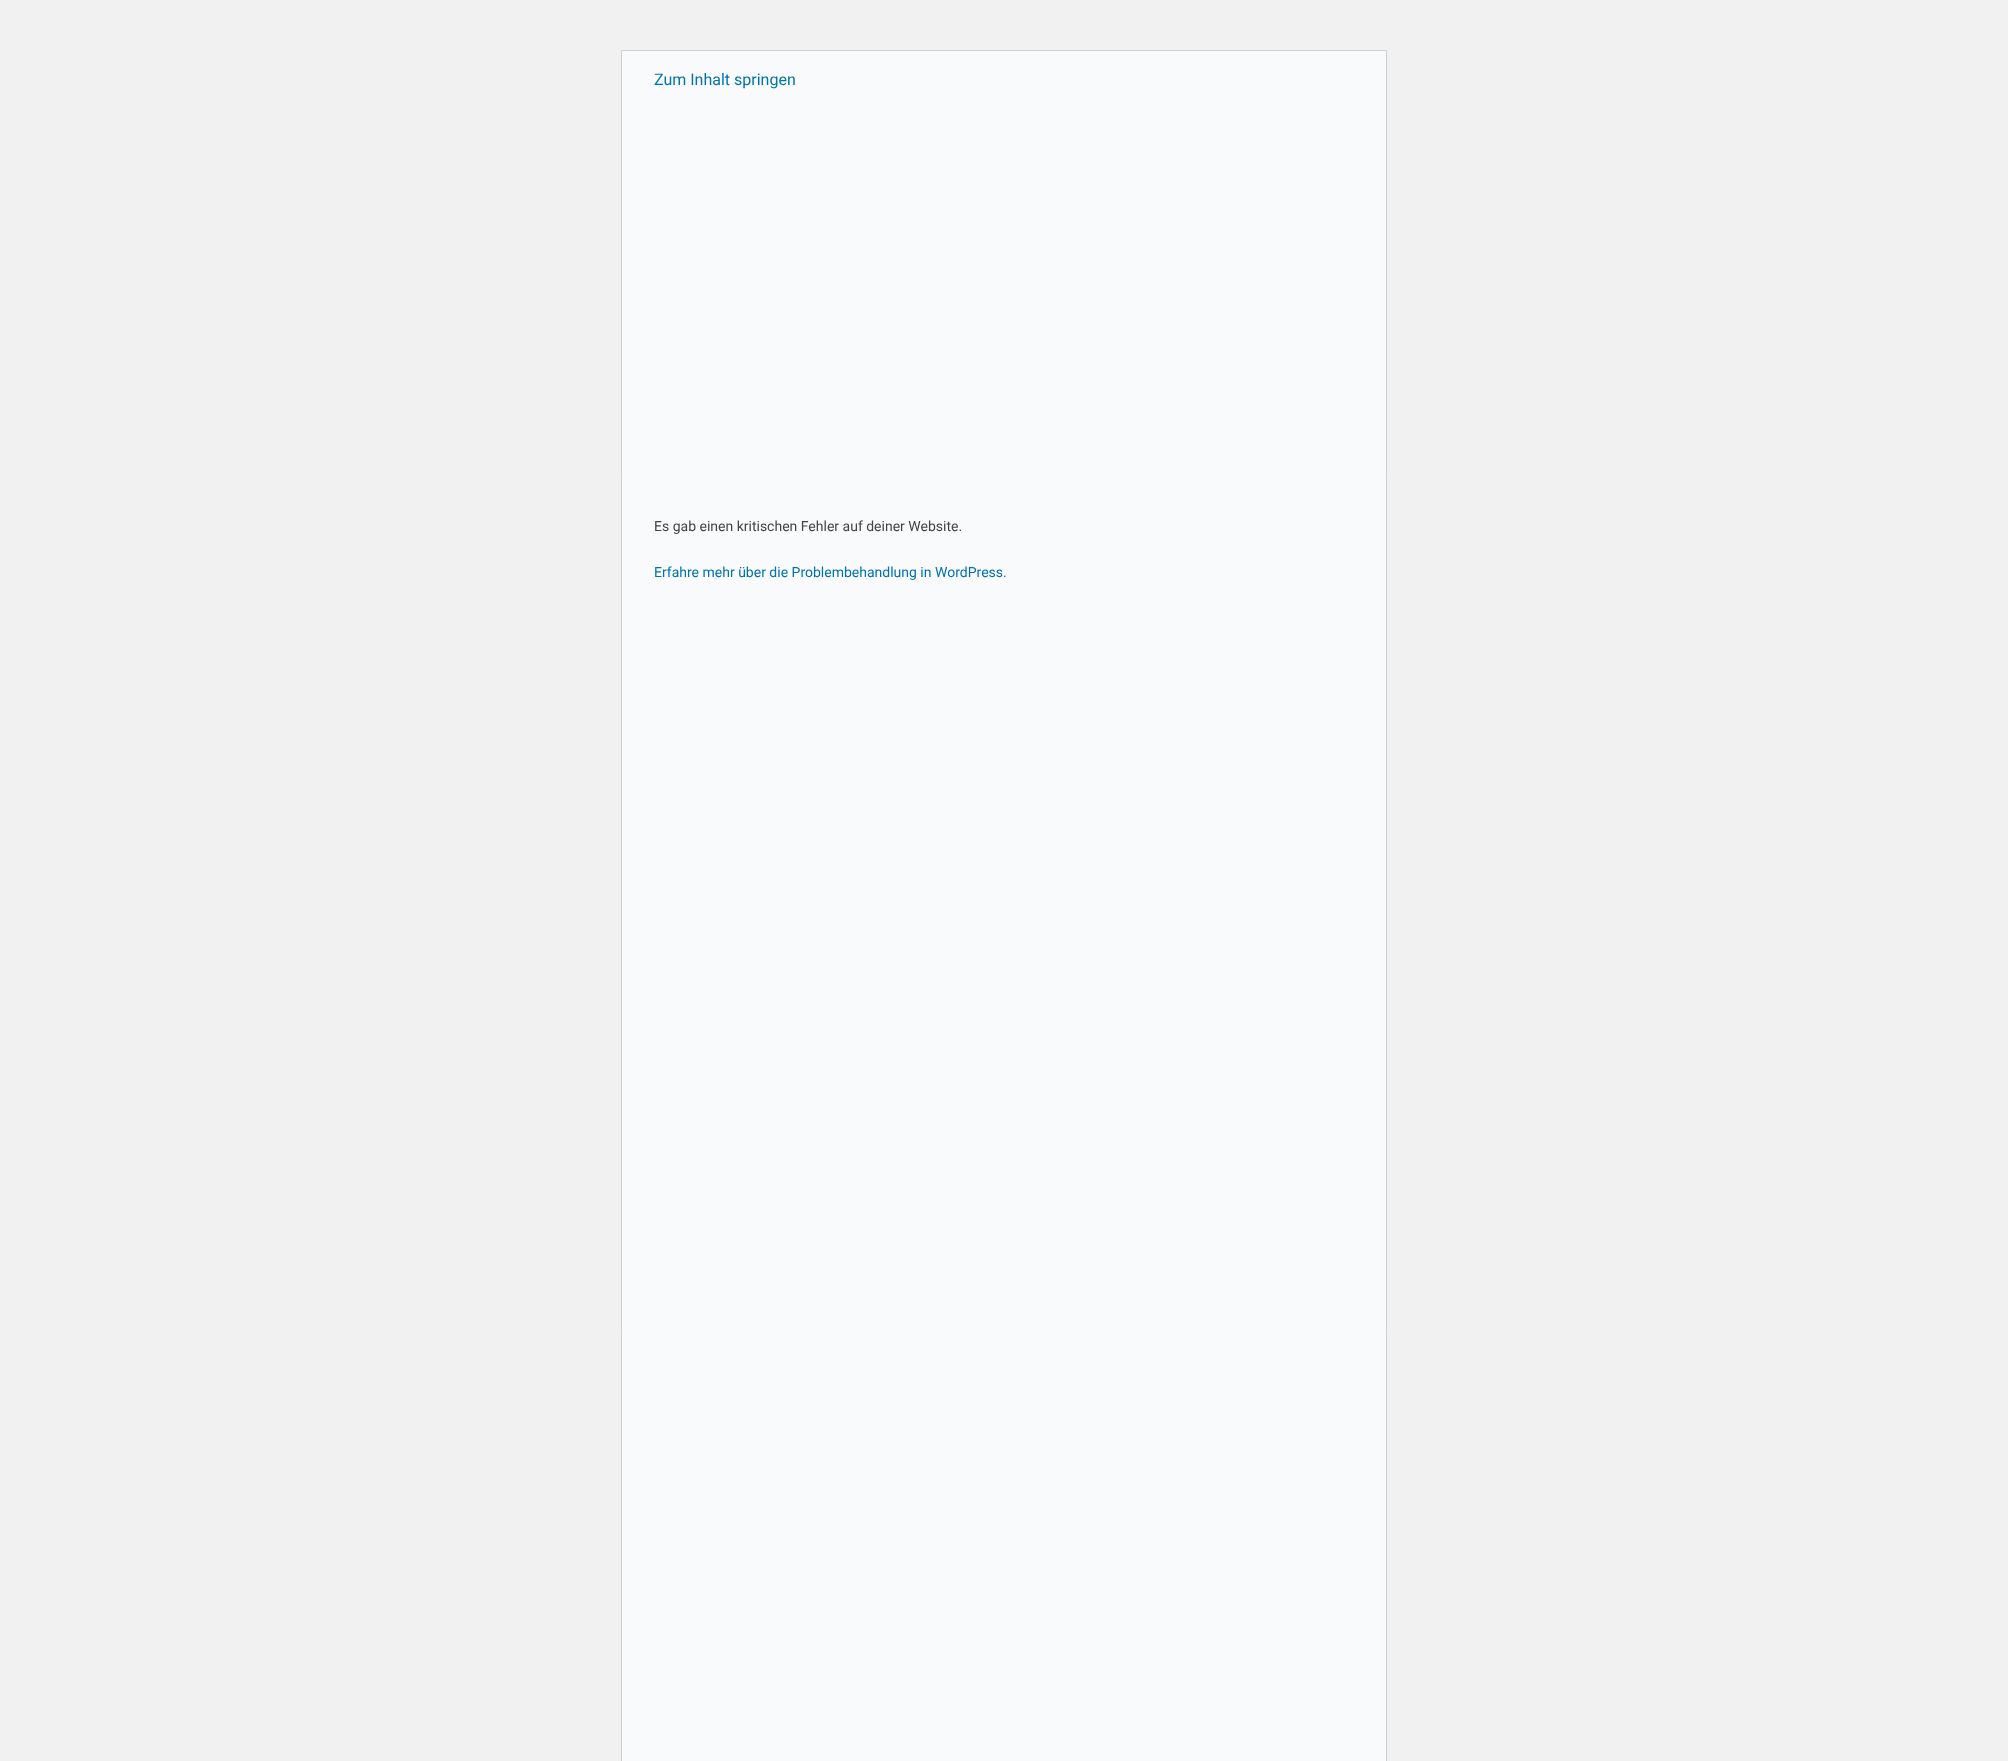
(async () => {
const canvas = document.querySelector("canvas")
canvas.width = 2008
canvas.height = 1761
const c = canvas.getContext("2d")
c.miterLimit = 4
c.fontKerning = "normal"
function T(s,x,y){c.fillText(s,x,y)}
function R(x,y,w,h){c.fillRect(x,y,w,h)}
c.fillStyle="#f1f1f1"
R(0,0,2008,1761)
c.fillStyle="#f9fafb"
c.beginPath()
c.rect(621.5,50.5,765,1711)
c.fill()
c.strokeStyle="#ccd0d4"
c.stroke()
c.font="16px Roboto"
c.fillStyle="#0073aa"
T("Zum Inhalt springen",654,85)
c.font="14px Roboto"
c.fillStyle="#444"
T("Es gab einen kritischen Fehler auf deiner Website.",654,531)
c.fillStyle="#0073aa"
T("Erfahre mehr über die Problembehandlung in WordPress.",654,577)
})()
